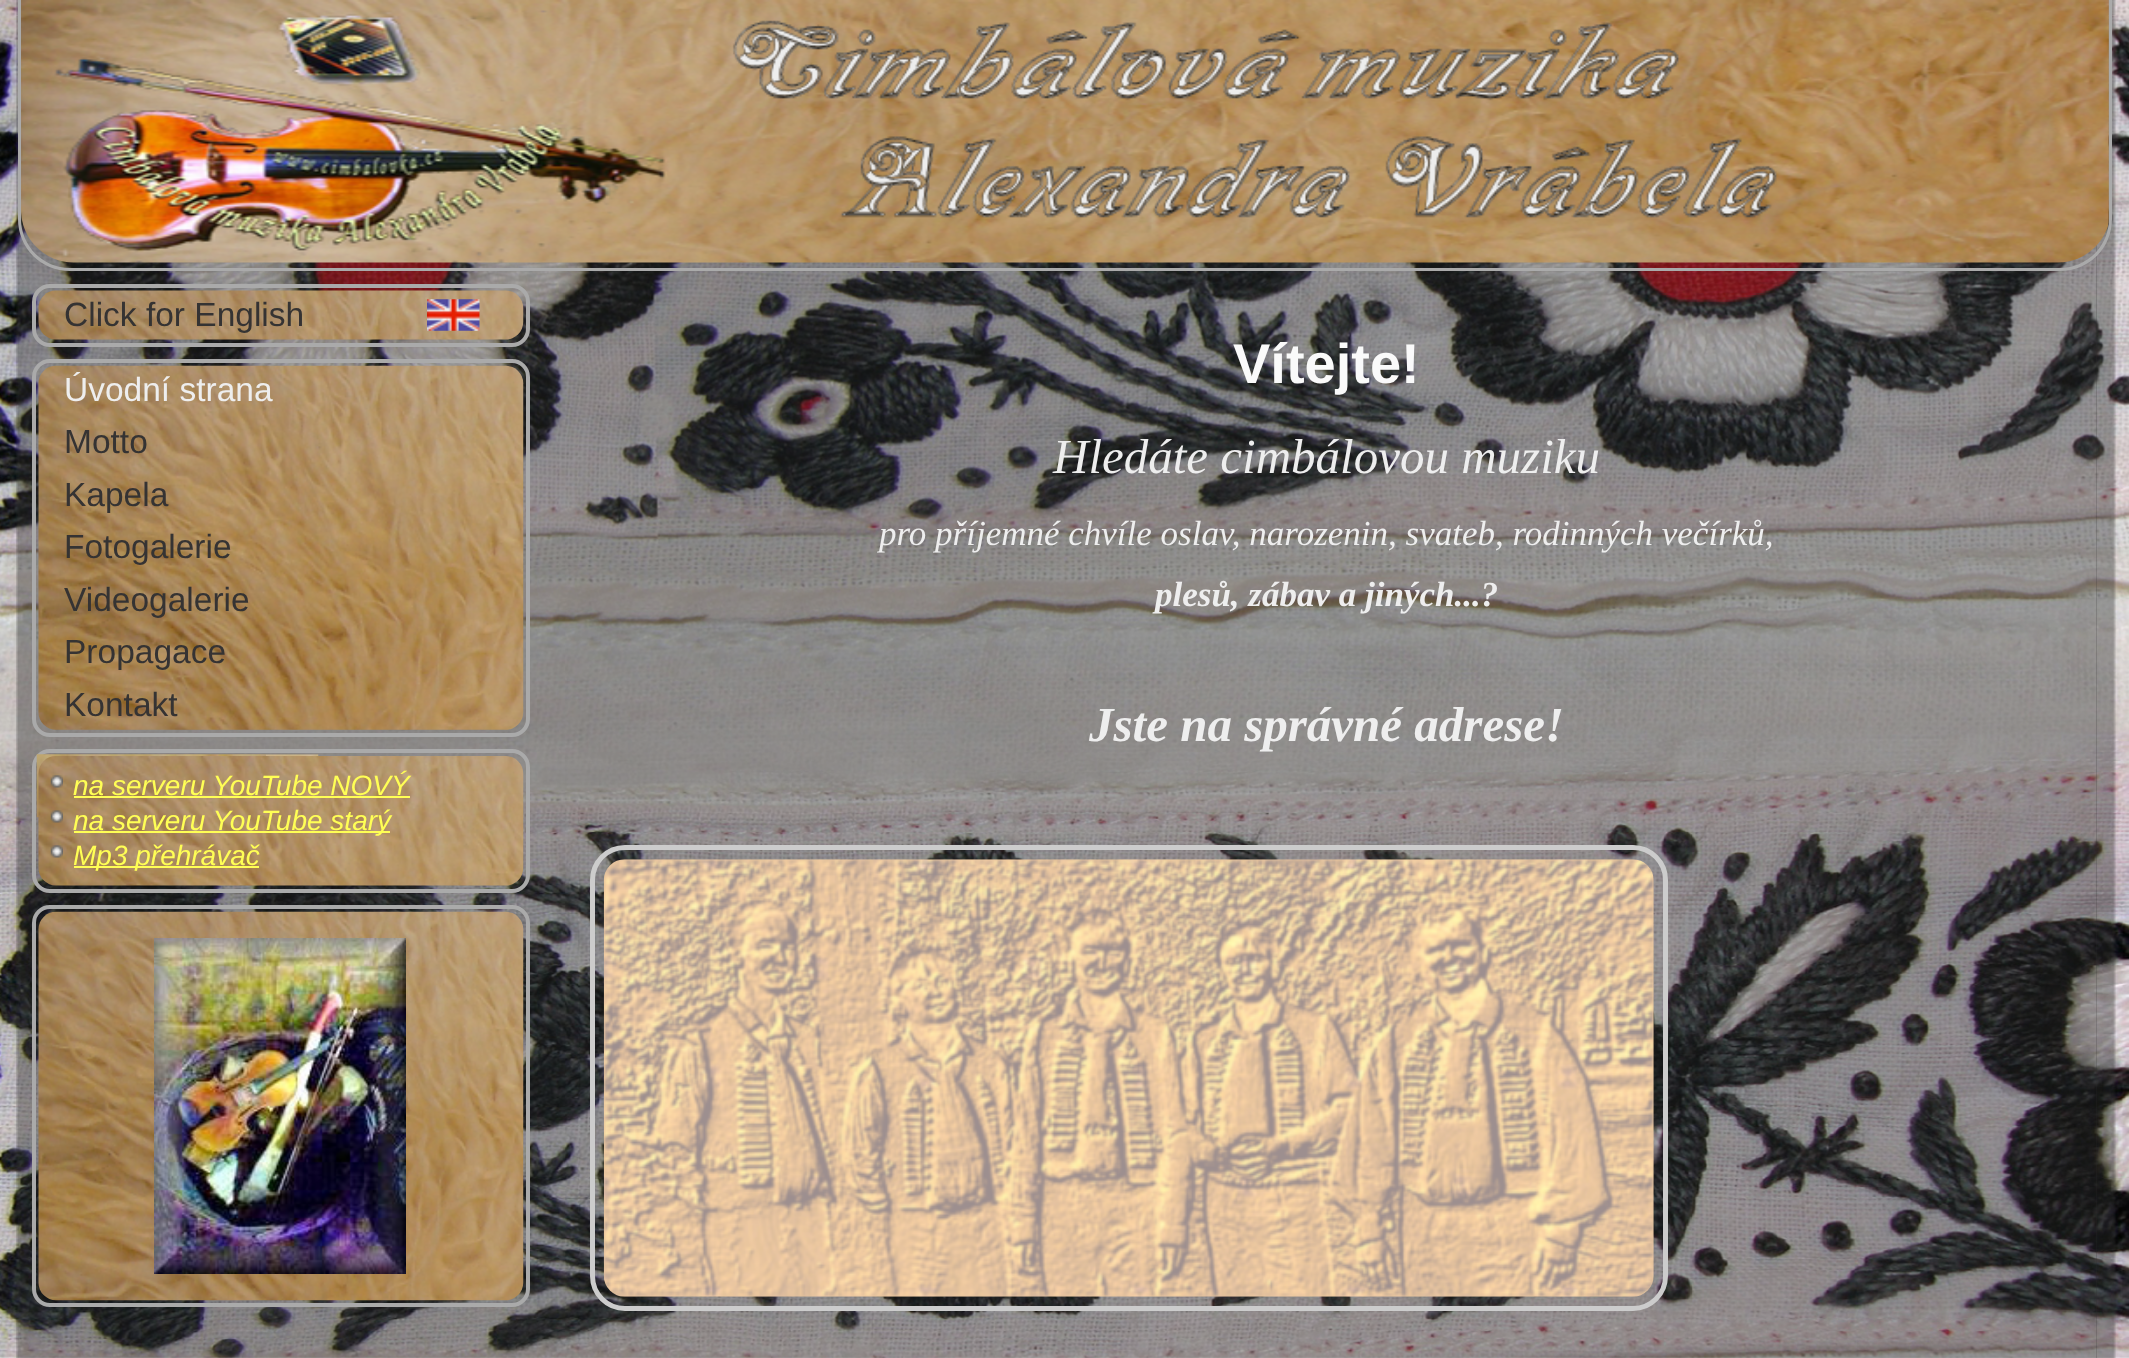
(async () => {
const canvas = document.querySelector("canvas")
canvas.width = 2129
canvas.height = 1358
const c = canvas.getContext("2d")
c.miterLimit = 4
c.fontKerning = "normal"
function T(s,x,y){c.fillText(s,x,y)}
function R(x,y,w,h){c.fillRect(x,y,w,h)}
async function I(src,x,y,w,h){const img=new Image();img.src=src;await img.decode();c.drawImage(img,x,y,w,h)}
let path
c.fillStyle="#fff"
R(0,0,2129,1358)
await I("1.png",0,0,2129,1358)
await I("2.png",16,0,8,16)
await I("3.png",2108,0,8,16)
await I("4.png",16,16,19,1342)
await I("5.png",2096,16,20,1342)
c.fillStyle="#2d2d2d66"
R(35,245,2062,1113)
c.fillStyle="#aaa"
path = new Path2D("M18 0h2094v219c0 29-23 52-52 52h-1990c-29 0-52-23-52-52zm3 0h2088v219c0 27-22 49-49 49h-1990c-27 0-49-22-49-49z")
c.fill(path,"evenodd")
await I("6.png",21,0,2088,263)
await I("7.png",732,20,1045,198)
c.beginPath()
c.roundRect(34,286,494,59,16)
c.strokeStyle="#aaa"
c.lineWidth=4
c.stroke()
await I("8.png",38,290,486,50)
await I("9.png",427,299,53,32)
c.font="33.5px Liberation Sans"
c.fillStyle="#353333"
T("Click for English",64,326)
c.beginPath()
c.roundRect(34,361,494,374,16)
c.stroke()
await I("10.png",38,365,486,365)
c.fillStyle="#eee"
T("Úvodní strana",64,401)
c.fillStyle="#353333"
T("Motto",64,453)
T("Kapela",64,506)
T("Fotogalerie",64,558)
T("Videogalerie",64,611)
T("Propagace",64,663)
T("Kontakt",64,716)
c.beginPath()
c.roundRect(34,751,494,140,16)
c.stroke()
await I("11.png",36,754,230,64)
await I("12.png",266,754,53,2)
await I("13.png",38,756,486,130)
await I("14.png",50,775,13,13)
c.font="italic 28px Liberation Sans"
c.fillStyle="#ff5"
T("na serveru YouTube NOVÝ",73,795)
R(74,796,336,2)
await I("15.png",50,810,13,13)
R(74,831,316,2)
T("na serveru YouTube starý",73,830)
await I("16.png",50,845,13,13)
R(74,866,185,2)
T("Mp3 přehrávač",73,865)
c.beginPath()
c.roundRect(34,907,494,398,16)
c.stroke()
await I("17.png",38,911,486,390)
await I("18.png",154,938,252,336)
c.font="bold 56px Liberation Sans"
c.fillStyle="#fafafa"
T("Vítejte!",1233,383)
c.font="italic 49px Liberation Serif"
c.fillStyle="#eee"
T("Hledáte cimbálovou muziku",1053,473)
c.font="italic 35px Liberation Serif"
T("pro příjemné chvíle oslav, narozenin, svateb, rodinných večírků,",879,545)
c.font="italic bold 35px Liberation Serif"
T("plesů, zábav a jiných...?",1155,606)
c.font="italic bold 49px Liberation Serif"
T("Jste na správné adrese!",1089,741)
c.beginPath()
c.roundRect(592.5,847.5,1073,461,32.5)
c.strokeStyle="#ccc"
c.lineWidth=5
c.stroke()
await I("19.png",603,859,1051,438)
})()
